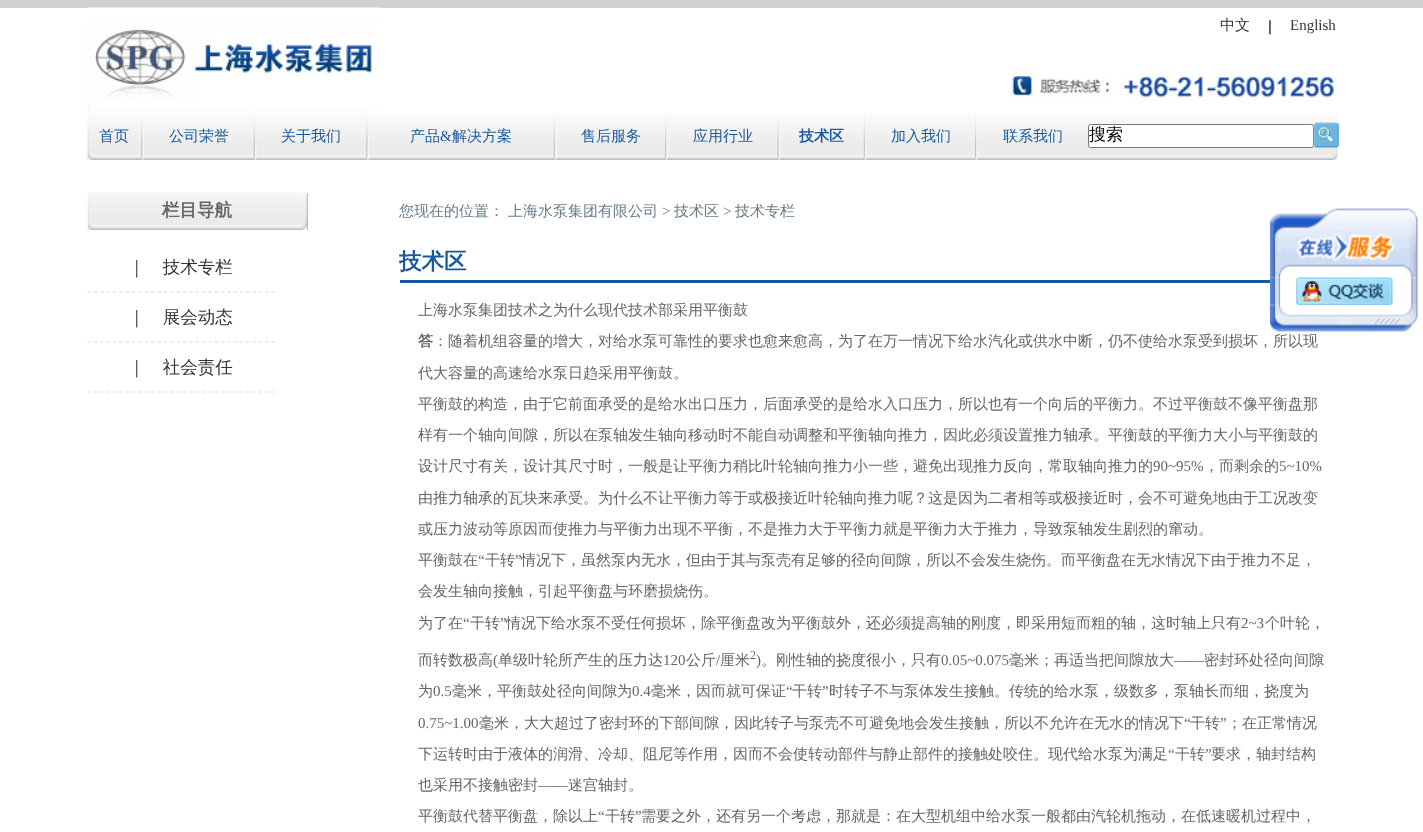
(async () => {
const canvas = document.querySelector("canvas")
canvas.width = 1423
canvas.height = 832
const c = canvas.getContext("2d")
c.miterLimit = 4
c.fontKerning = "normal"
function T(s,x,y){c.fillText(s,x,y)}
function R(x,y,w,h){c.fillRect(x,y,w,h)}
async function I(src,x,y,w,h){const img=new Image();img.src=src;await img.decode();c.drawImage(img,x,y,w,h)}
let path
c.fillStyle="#fff"
R(0,0,1423,832)
c.fillStyle="#cfd1d0"
R(0,0,1423,8)
await I("1.png",87,7,295,105)
c.font="500 15px WenQuanYi Zen Hei"
c.fillStyle="#333"
T("中文",1220,30)
c.font="15px Liberation Sans"
c.fillStyle="#000"
T("|",1268,31)
c.font="15px Liberation Serif"
c.fillStyle="#333"
T("English",1290,30)
await I("2.png",1011,70,326,31)
await I("3.png",87,113,1251,47)
c.font="500 15px WenQuanYi Zen Hei"
c.fillStyle="#18599d"
T("首页",99,141)
await I("4.png",141,116,3,44)
T("公司荣誉",169,141)
await I("5.png",253,115,4,45)
T("关于我们",281,141)
await I("6.png",366,116,3,44)
T("产品",410,141)
c.font="15px Liberation Serif"
T("&",440,141)
c.font="500 15px WenQuanYi Zen Hei"
T("解决方案",452,141)
await I("7.png",553,115,4,45)
T("售后服务",581,141)
await I("8.png",665,114,3,46)
T("应用行业",693,141)
await I("9.png",777,119,3,41)
c.font="bold 15px WenQuanYi Zen Hei"
T("技术区",799,141)
await I("5.png",863,115,4,45)
c.font="500 15px WenQuanYi Zen Hei"
T("加入我们",891,141)
await I("8.png",975,114,3,46)
T("联系我们",1003,141)
c.fillStyle="#fff"
c.beginPath()
c.roundRect(1088.5,124.5,225,23,2)
c.fill()
c.strokeStyle="#767676"
c.stroke()
c.font="500 17px WenQuanYi Zen Hei"
c.fillStyle="#000"
T("搜索",1089,140)
await I("10.png",1313,122,26,26)
c.fillStyle="#939393"
R(307,193,1,37)
await I("11.png",87,192,221,38)
c.font="bold 17.5px WenQuanYi Zen Hei"
c.fillStyle="#656565"
T("栏目导航",162,216)
path = new Path2D("M87.5 292h187.5")
c.strokeStyle="#ddd"
c.lineWidth=1.2
c.setLineDash([3.75,2.59])
c.stroke(path)
c.font="500 17.5px WenQuanYi Zen Hei"
c.fillStyle="#333"
T("｜　技术专栏",128,273)
path = new Path2D("M87.5 342h187.5")
c.stroke(path)
T("｜　展会动态",128,323)
path = new Path2D("M87.5 392h187.5")
c.stroke(path)
T("｜　社会责任",128,373)
c.font="500 15px WenQuanYi Zen Hei"
c.fillStyle="#677b86"
T("您现在的位置：",399,216)
T("上海水泵集团有限公司",508,216)
c.font="15px Liberation Serif"
T(">",662,216)
c.font="500 15px WenQuanYi Zen Hei"
T("技术区",674,216)
c.font="15px Liberation Serif"
T(">",723,216)
c.font="500 15px WenQuanYi Zen Hei"
T("技术专栏",735,216)
c.fillStyle="#18599d"
R(400,280,870,3)
c.font="bold 22.5px WenQuanYi Zen Hei"
T("技术区",399,269)
c.font="500 15px WenQuanYi Zen Hei"
c.fillStyle="#656565"
T("上海水泵集团技术之为什么现代技术部采用平衡鼓",418,315)
c.font="bold 15px WenQuanYi Zen Hei"
T("答",418,346)
c.font="500 15px WenQuanYi Zen Hei"
T("：随着机组容量的增大，对给水泵可靠性的要求也愈来愈高，为了在万一情况下给水汽化或供水中断，仍不使给水泵受到损坏，所以现",433,346)
T("代大容量的高速给水泵日趋采用平衡鼓。",418,378)
T("平衡鼓的构造，由于它前面承受的是给水出口压力，后面承受的是给水入口压力，所以也有一个向后的平衡力。不过平衡鼓不像平衡盘那",418,409)
T("样有一个轴向间隙，所以在泵轴发生轴向移动时不能自动调整和平衡轴向推力，因此必须设置推力轴承。平衡鼓的平衡力大小与平衡鼓的",418,440)
T("设计尺寸有关，设计其尺寸时，一般是让平衡力稍比叶轮轴向推力小一些，避免出现推力反向，常取轴向推力的",418,471)
c.font="15px Liberation Serif"
T("90~95%",1153,471)
c.font="500 15px WenQuanYi Zen Hei"
T("，而剩余的",1204,471)
c.font="15px Liberation Serif"
T("5~10%",1279,471)
c.font="500 15px WenQuanYi Zen Hei"
T("由推力轴承的瓦块来承受。为什么不让平衡力等于或极接近叶轮轴向推力呢？这是因为二者相等或极接近时，会不可避免地由于工况改变",418,503)
T("或压力波动等原因而使推力与平衡力出现不平衡，不是推力大于平衡力就是平衡力大于推力，导致泵轴发生剧烈的窜动。",418,534)
T("平衡鼓在",418,565)
c.font="15px Liberation Serif"
T("“",478,565)
c.font="500 15px WenQuanYi Zen Hei"
T("干转",485,565)
c.font="15px Liberation Serif"
T("”",515,565)
c.font="500 15px WenQuanYi Zen Hei"
T("情况下，虽然泵内无水，但由于其与泵壳有足够的径向间隙，所以不会发生烧伤。而平衡盘在无水情况下由于推力不足，",521,565)
T("会发生轴向接触，引起平衡盘与环磨损烧伤。",418,596)
T("为了在",418,628)
c.font="15px Liberation Serif"
T("“",463,628)
c.font="500 15px WenQuanYi Zen Hei"
T("干转",470,628)
c.font="15px Liberation Serif"
T("”",500,628)
c.font="500 15px WenQuanYi Zen Hei"
T("情况下给水泵不受任何损坏，除平衡盘改为平衡鼓外，还必须提高轴的刚度，即采用短而粗的轴，这时轴上只有",506,628)
c.font="15px Liberation Serif"
T("2~3",1241,628)
c.font="500 15px WenQuanYi Zen Hei"
T("个叶轮，",1265,628)
T("而转数极高",418,665)
c.font="15px Liberation Serif"
T("(",493,665)
c.font="500 15px WenQuanYi Zen Hei"
T("单级叶轮所产生的压力达",498,665)
c.font="15px Liberation Serif"
T("120",663,665)
c.font="500 15px WenQuanYi Zen Hei"
T("公斤",686,665)
c.font="15px Liberation Serif"
T("/",716,665)
c.font="500 15px WenQuanYi Zen Hei"
T("厘米",720,665)
c.font="12px Liberation Serif"
T("2",750,659)
c.font="15px Liberation Serif"
T(")",756,665)
c.font="500 15px WenQuanYi Zen Hei"
T("。刚性轴的挠度很小，只有",761,665)
c.font="15px Liberation Serif"
T("0.05~0.075",941,665)
c.font="500 15px WenQuanYi Zen Hei"
T("毫米；再适当把间隙放大",1009,665)
c.font="15px Liberation Serif"
T("——",1174,665)
c.font="500 15px WenQuanYi Zen Hei"
T("密封环处径向间隙",1204,665)
T("为",418,696)
c.font="15px Liberation Serif"
T("0.5",433,696)
c.font="500 15px WenQuanYi Zen Hei"
T("毫米，平衡鼓处径向间隙为",452,696)
c.font="15px Liberation Serif"
T("0.4",632,696)
c.font="500 15px WenQuanYi Zen Hei"
T("毫米，因而就可保证",651,696)
c.font="15px Liberation Serif"
T("“",786,696)
c.font="500 15px WenQuanYi Zen Hei"
T("干转",792,696)
c.font="15px Liberation Serif"
T("”",822,696)
c.font="500 15px WenQuanYi Zen Hei"
T("时转子不与泵体发生接触。传统的给水泵，级数多，泵轴长而细，挠度为",829,696)
c.font="15px Liberation Serif"
T("0.75~1.00",418,728)
c.font="500 15px WenQuanYi Zen Hei"
T("毫米，大大超过了密封环的下部间隙，因此转子与泵壳不可避免地会发生接触，所以不允许在无水的情况下",479,728)
c.font="15px Liberation Serif"
T("“",1184,728)
c.font="500 15px WenQuanYi Zen Hei"
T("干转",1190,728)
c.font="15px Liberation Serif"
T("”",1220,728)
c.font="500 15px WenQuanYi Zen Hei"
T("；在正常情况",1227,728)
T("下运转时由于液体的润滑、冷却、阻尼等作用，因而不会使转动部件与静止部件的接触处咬住。现代给水泵为满足",418,759)
c.font="15px Liberation Serif"
T("“",1168,759)
c.font="500 15px WenQuanYi Zen Hei"
T("干转",1175,759)
c.font="15px Liberation Serif"
T("”",1205,759)
c.font="500 15px WenQuanYi Zen Hei"
T("要求，轴封结构",1211,759)
T("也采用不接触密封",418,790)
c.font="15px Liberation Serif"
T("——",538,790)
c.font="500 15px WenQuanYi Zen Hei"
T("迷宫轴封。",568,790)
T("平衡鼓代替平衡盘，除以上",418,821)
c.font="15px Liberation Serif"
T("“",598,821)
c.font="500 15px WenQuanYi Zen Hei"
T("干转",605,821)
c.font="15px Liberation Serif"
T("”",635,821)
c.font="500 15px WenQuanYi Zen Hei"
T("需要之外，还有另一个考虑，那就是：在大型机组中给水泵一般都由汽轮机拖动，在低速暖机过程中，",641,821)
await I("13.png",1270,277,148,29)
await I("12.png",1270,208,148,70)
await I("14.png",1296,277,97,28)
await I("15.png",1270,304,148,28)
})()
